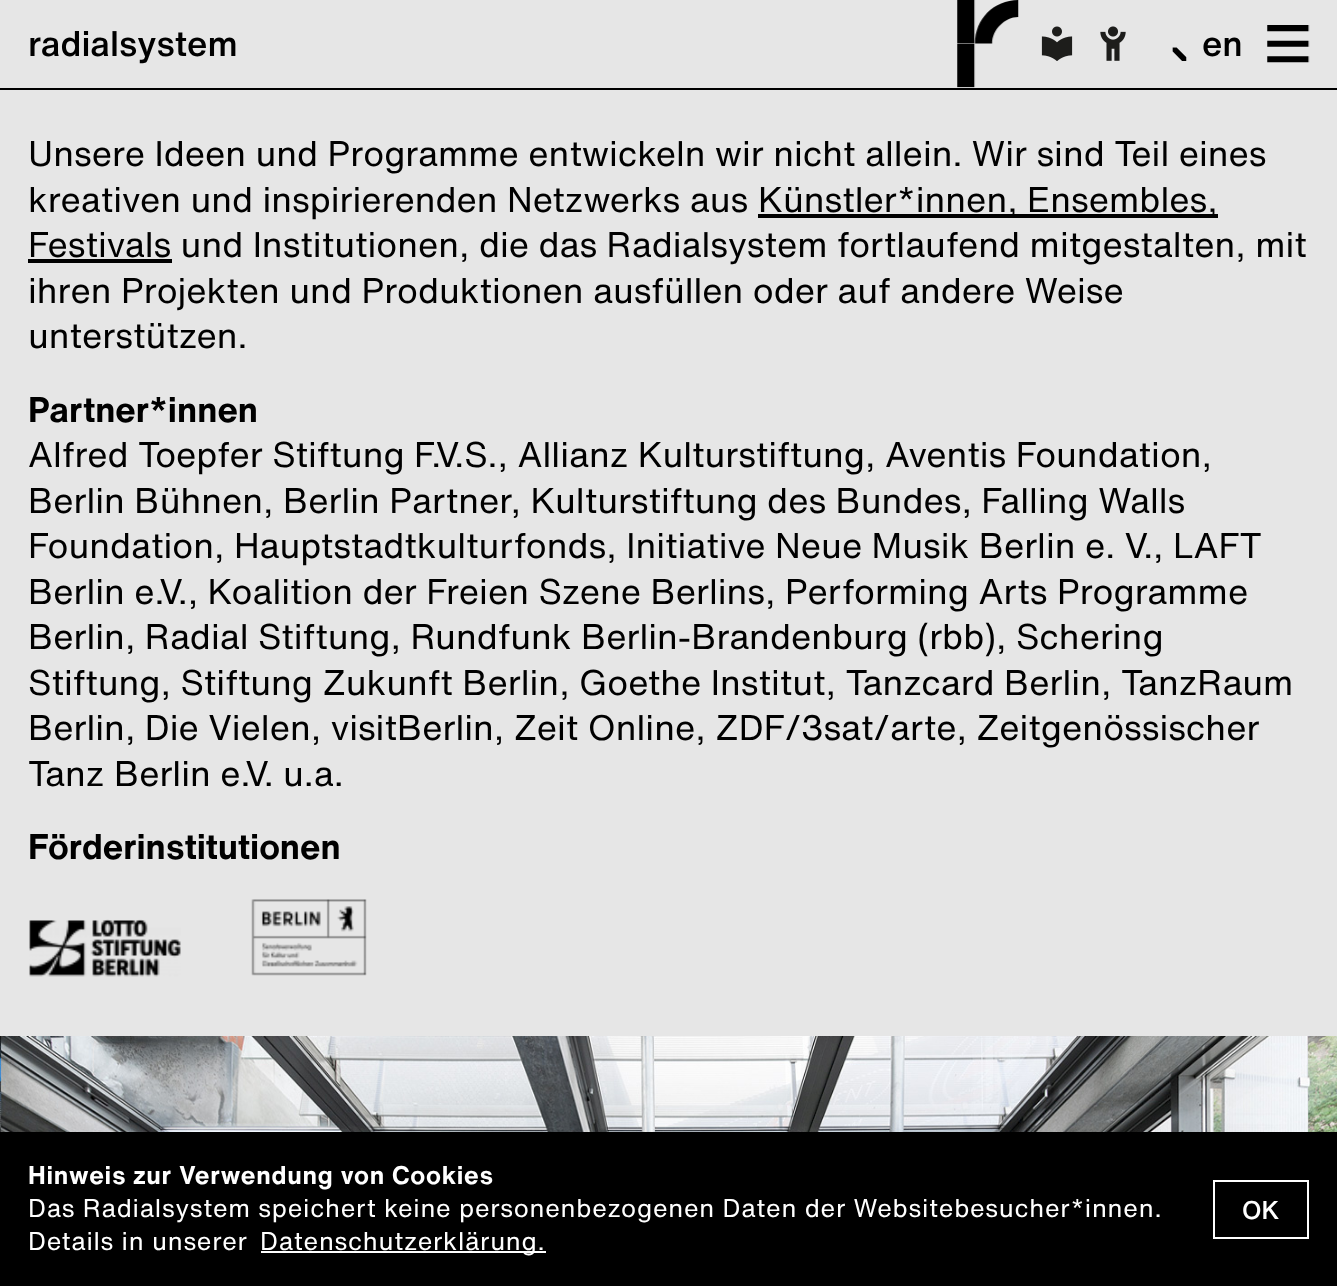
(async () => {
const canvas = document.querySelector("canvas")
canvas.width = 1337
canvas.height = 1286
const c = canvas.getContext("2d")
c.miterLimit = 4
c.fontKerning = "normal"
function T(s,x,y){c.fillText(s,x,y)}
function R(x,y,w,h){c.fillRect(x,y,w,h)}
async function I(src,x,y,w,h){const img=new Image();img.src=src;await img.decode();c.drawImage(img,x,y,w,h)}
c.fillStyle="#e6e6e6"
R(0,0,1337,1286)
c.fillStyle="#000"
R(0,88,1337,2)
c.font="500 35px 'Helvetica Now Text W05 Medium'"
T("radialsystem",28,56)
await I("1.png",957,0,62,88)
await I("2.png",1041,26,32,35)
await I("3.png",1100,26,26,35)
await I("4.png",1172,47,15,14)
T("en",1202,56)
await I("5.png",1267,25,43,38)
c.font="35px 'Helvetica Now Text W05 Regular'"
T("Unsere Ideen und Programme entwickeln wir nicht allein. Wir sind Teil eines",28,166)
T("kreativen und inspirierenden Netzwerks aus",28,212)
R(758,214,460,4)
T("Künstler*innen, Ensembles,",758,212)
R(28,259,144,4)
T("Festivals und Institutionen, die das Radialsystem fortlaufend mitgestalten, mit",28,257)
T("ihren Projekten und Produktionen ausfüllen oder auf andere Weise",28,303)
T("unterstützen.",28,348)
c.font="bold 35px 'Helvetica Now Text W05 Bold'"
T("Partner*innen",28,422)
c.font="35px 'Helvetica Now Text W05 Regular'"
T("Alfred Toepfer Stiftung F.V.S., Allianz Kulturstiftung, Aventis Foundation,",28,467)
T("Berlin Bühnen, Berlin Partner, Kulturstiftung des Bundes, Falling Walls",28,513)
T("Foundation, Hauptstadtkulturfonds, Initiative Neue Musik Berlin e. V., LAFT",28,558)
T("Berlin e.V., Koalition der Freien Szene Berlins, Performing Arts Programme",28,604)
T("Berlin, Radial Stiftung, Rundfunk Berlin-Brandenburg (rbb), Schering",28,649)
T("Stiftung, Stiftung Zukunft Berlin, Goethe Institut, Tanzcard Berlin, TanzRaum",28,695)
T("Berlin, Die Vielen, visitBerlin, Zeit Online, ZDF/3sat/arte, Zeitgenössischer",28,740)
T("Tanz Berlin e.V. u.a.",28,786)
c.font="bold 35px 'Helvetica Now Text W05 Bold'"
T("Förderinstitutionen",28,859)
await I("6.png",29,919,152,58)
await I("7.png",251,899,116,77)
await I("8.png",0,1036,1337,96)
R(0,1132,1337,154)
c.letterSpacing="0.75px"
c.font="bold 25.2px 'Helvetica Now Text W05 Bold'"
c.fillStyle="#fff"
T("Hinweis zur Verwendung von Cookies",28,1184)
c.font="25.2px 'Helvetica Now Text W05 Regular'"
T("Das Radialsystem speichert keine personenbezogenen Daten der Websitebesucher*innen.",28,1217)
T("Details in unserer",28,1250)
R(261,1251,285,2)
T("Datenschutzerklärung.",260,1250)
c.strokeStyle="#fff"
c.lineWidth=2
c.strokeRect(1214,1181,94,57)
c.letterSpacing="0px"
c.font="500 25.2px 'Helvetica Now Text W05 Medium'"
T("OK",1242,1219)
})()
